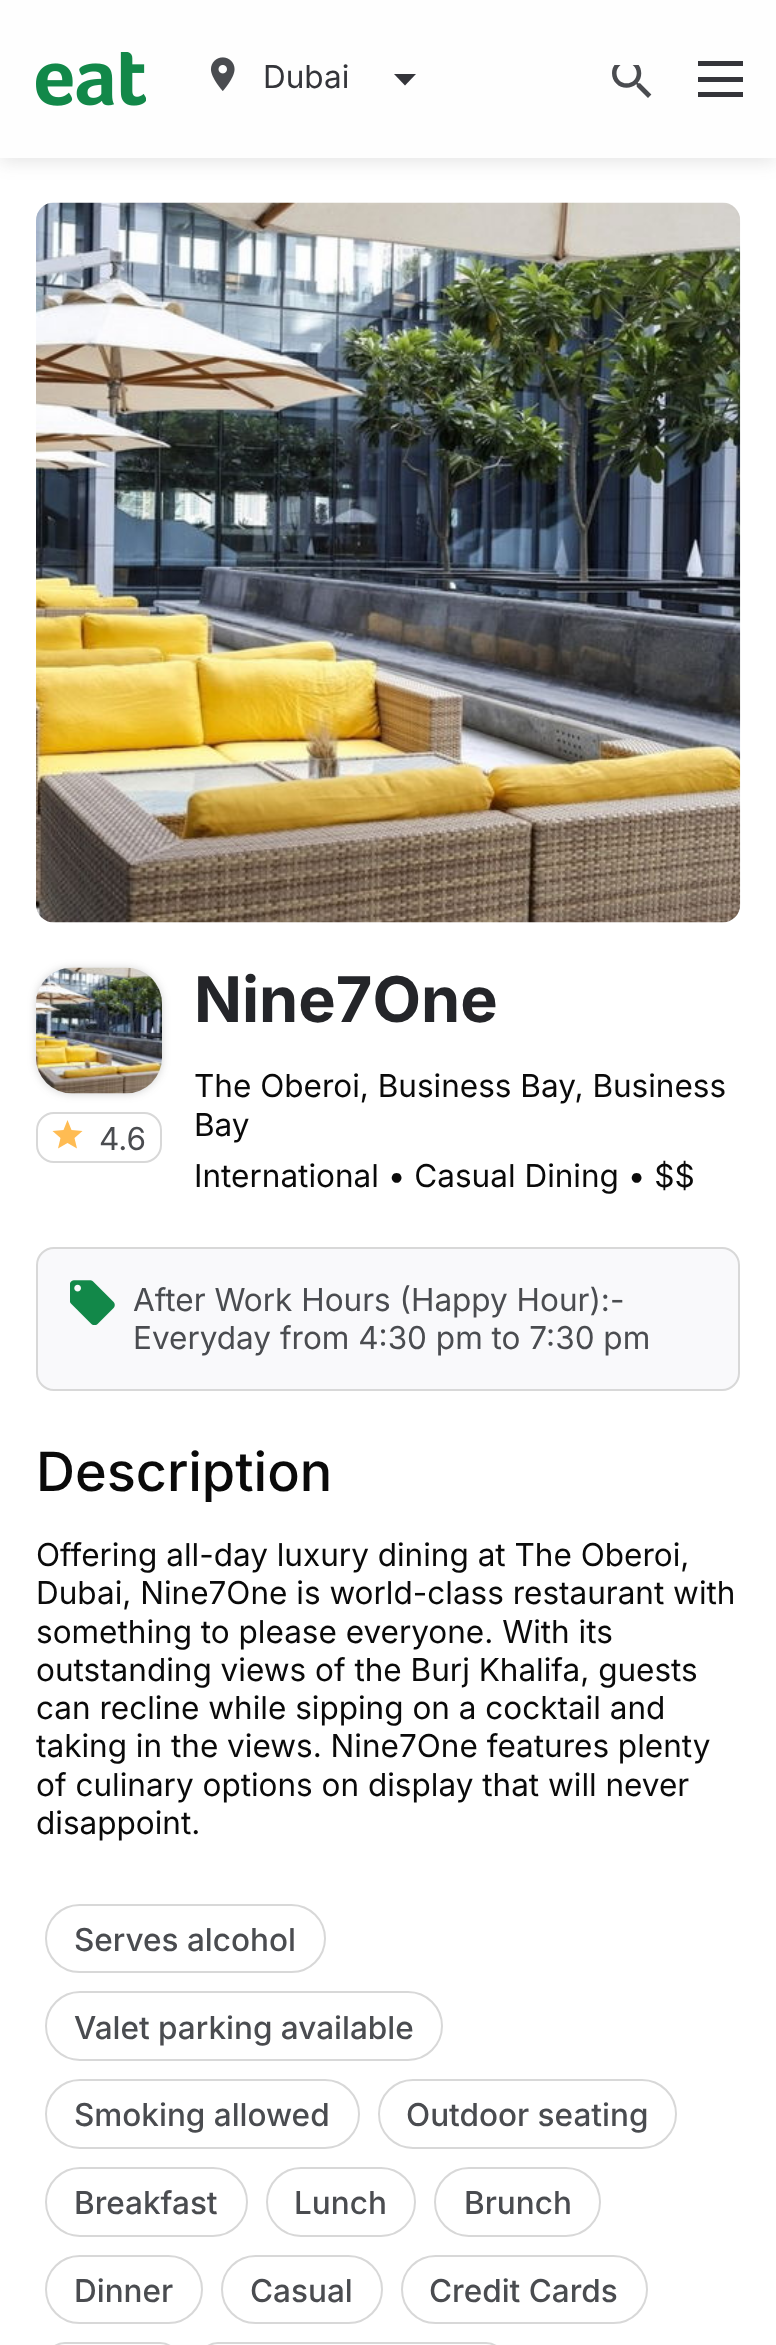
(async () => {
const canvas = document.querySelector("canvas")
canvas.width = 776
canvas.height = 2345
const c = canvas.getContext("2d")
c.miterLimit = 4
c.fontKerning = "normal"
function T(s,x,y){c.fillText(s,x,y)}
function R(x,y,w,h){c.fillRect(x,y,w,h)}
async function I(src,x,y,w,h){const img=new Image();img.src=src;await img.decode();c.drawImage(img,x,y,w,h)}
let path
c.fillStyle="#fff"
R(0,0,776,2345)
c.fillStyle="#50505026"
c.filter="blur(9px)"
c.beginPath()
c.rect(0,5,776,157)
c.fill()
c.filter="none"
c.fillStyle="#fefefe"
R(0,0,776,158)
await I("1.png",36,52,110,54)
await I("2.png",210,57,25,34)
c.font="31.5px Inter"
c.fillStyle="#34353a"
T("Dubai",263,88)
path = new Path2D("M394 74l11 11.5l11-11.5z")
c.fill(path)
await I("3.png",612,65,40,33)
R(698,92,45,5)
R(698,77,45,5)
R(698,61,45,5)
await I("4.png",36,202,705,721)
c.fillStyle="#50505040"
c.filter="blur(4.5px)"
c.beginPath()
c.roundRect(36,968,126,126,36)
c.fill()
c.filter="none"
await I("5.png",36,967,126,127)
c.beginPath()
c.roundRect(37,1113,124,49,17)
c.strokeStyle="#d8d8d8"
c.lineWidth=2
c.stroke()
c.fillStyle="#ffbc53"
path = new Path2D("M67.5 1143l9.5 5.5l-2.5-10.5l8-7l-11-1l-4-10l-4 10l-11 1l8 7l-2.5 10.5z")
c.fill(path)
c.fillStyle="#4a4c50"
T("4.6",99,1150)
c.font="bold 63px Inter"
c.fillStyle="#242529"
T("Nine7One",194,1022)
c.font="31.5px Inter"
c.fillStyle="#0a0a0a"
T("The Oberoi, Business Bay, Business",194,1097)
T("Bay",194,1136)
T("International • Casual Dining • $$",194,1187)
c.fillStyle="#f9f9fb"
c.beginPath()
c.roundRect(37,1248,702,142,17)
c.fill()
c.stroke()
await I("6.png",70,1280,45,45)
c.fillStyle="#4a4c50"
T("After Work Hours (Happy Hour):-",133,1311)
T("Everyday from 4:30 pm to 7:30 pm",133,1349)
c.font="500 54px Inter"
c.fillStyle="#0a0a0a"
T("Description",36,1491)
c.font="31.5px Inter"
T("Offering all-day luxury dining at The Oberoi,",36,1566)
T("Dubai, Nine7One is world-class restaurant with",36,1604)
T("something to please everyone. With its",36,1643)
T("outstanding views of the Burj Khalifa, guests",36,1681)
T("can recline while sipping on a cocktail and",36,1719)
T("taking in the views. Nine7One features plenty",36,1757)
T("of culinary options on display that will never",36,1796)
T("disappoint.",36,1834)
c.beginPath()
c.roundRect(46,1905,279,67,33.5)
c.stroke()
c.font="500 31.5px Inter"
c.fillStyle="#4a4c50"
T("Serves alcohol",74,1951)
c.beginPath()
c.roundRect(46,1992,396,68,34)
c.stroke()
T("Valet parking available",74,2039)
c.beginPath()
c.roundRect(46,2080,313,68,34)
c.stroke()
T("Smoking allowed",74,2126)
c.beginPath()
c.roundRect(379,2080,297,68,34)
c.stroke()
T("Outdoor seating",406,2126)
c.beginPath()
c.roundRect(46,2168,201,68,34)
c.stroke()
T("Breakfast",74,2214)
c.beginPath()
c.roundRect(267,2168,148,68,34)
c.stroke()
T("Lunch",294,2214)
c.beginPath()
c.roundRect(435,2168,165,68,34)
c.stroke()
T("Brunch",464,2214)
c.beginPath()
c.roundRect(46,2256,156,67,33.5)
c.stroke()
T("Dinner",74,2302)
c.beginPath()
c.roundRect(222,2256,160,67,33.5)
c.stroke()
T("Casual",250,2302)
c.beginPath()
c.roundRect(402,2256,245,67,33.5)
c.stroke()
T("Credit Cards",429,2302)
c.beginPath()
c.roundRect(46,2343,133,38,34)
c.stroke()
c.beginPath()
c.roundRect(199,2343,306,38,34)
c.stroke()
})()
